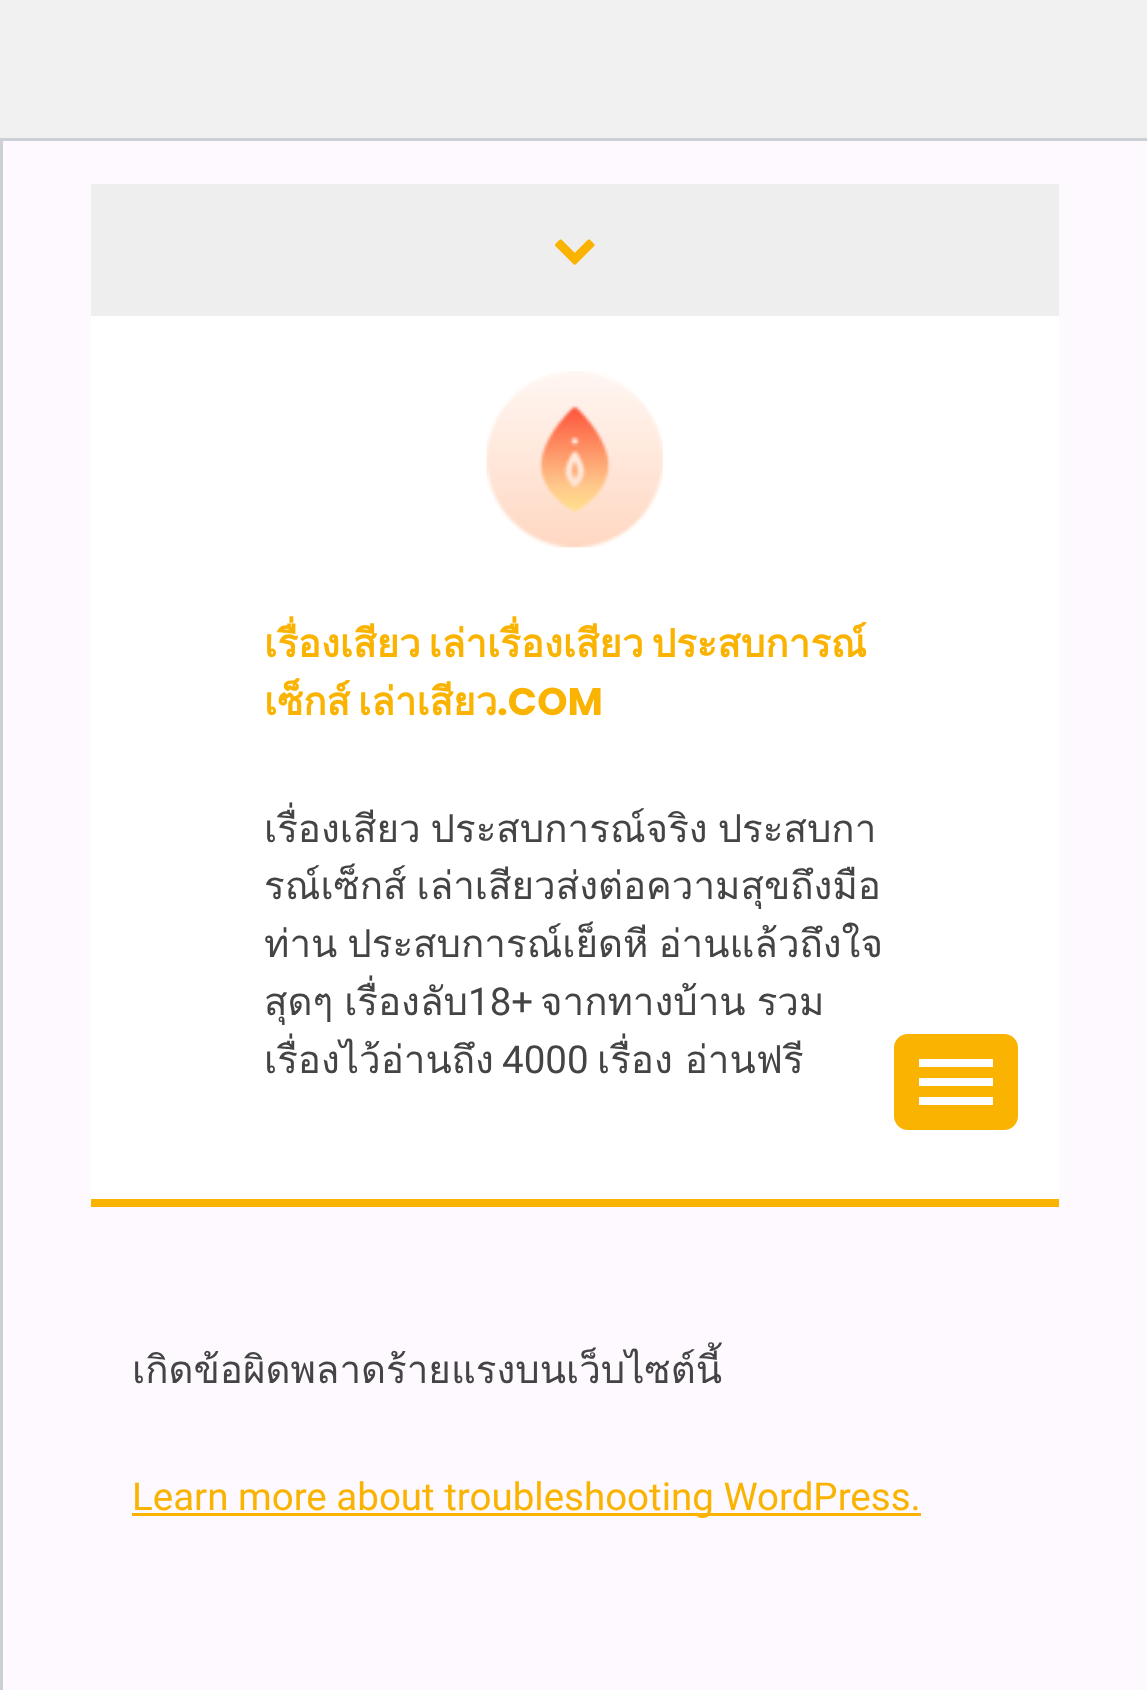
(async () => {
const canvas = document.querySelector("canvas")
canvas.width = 1147
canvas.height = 1690
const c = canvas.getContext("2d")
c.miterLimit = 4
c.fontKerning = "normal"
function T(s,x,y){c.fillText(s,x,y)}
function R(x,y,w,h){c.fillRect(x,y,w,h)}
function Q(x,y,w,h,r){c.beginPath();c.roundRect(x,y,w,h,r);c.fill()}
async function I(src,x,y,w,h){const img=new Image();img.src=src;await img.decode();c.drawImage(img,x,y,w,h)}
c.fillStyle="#f1f1f1"
R(0,0,1147,1690)
c.fillStyle="#fdf9ff"
c.beginPath()
c.rect(1.5,139.5,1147,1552)
c.fill()
c.strokeStyle="#ccd0d4"
c.lineWidth=3
c.stroke()
c.fillStyle="#fff"
R(91,316,968,883)
c.fillStyle="#eee"
R(91,184,968,132)
await I("1.png",555,239,40,26)
await I("2.png",486,371,177,177)
c.wordSpacing="-5px"
c.font="bold 38.5px Loma"
c.fillStyle="#f9b300"
T("เรื่องเสียว เล่าเรื่องเสียว ประสบการณ์",264,657)
T("เซ็กส์ เล่าเสียว",264,715)
c.wordSpacing="0px"
c.font="bold 38.5px Poppins"
T(".COM",497,715)
c.wordSpacing="-3px"
c.font="38.5px Loma"
c.fillStyle="#444"
T("เรื่องเสียว ประสบการณ์จริง ประสบกา",264,842)
T("รณ์เซ็กส์ เล่าเสียวส่งต่อความสุขถึงมือ",264,899)
T("ท่าน ประสบการณ์เย็ดหี อ่านแล้วถึงใจ",264,957)
c.wordSpacing="-2px"
T("สุดๆ เรื่องลับ",264,1015)
c.wordSpacing="0px"
c.font="38.5px Roboto"
T("18+",468,1015)
c.wordSpacing="-2px"
c.font="38.5px Loma"
T("จากทางบ้าน รวม",540,1015)
c.wordSpacing="0px"
T("เรื่องไว้อ่านถึง",264,1073)
c.font="38.5px Roboto"
T("4000",502,1073)
c.wordSpacing="-1px"
c.font="38.5px Loma"
T("เรื่อง อ่านฟรี",597,1073)
c.fillStyle="#f9b300"
Q(894,1034,124,96,14)
c.fillStyle="#fff"
R(919,1059,74,8)
R(919,1078,74,8)
R(919,1097,74,8)
c.fillStyle="#f9b300"
R(91,1199,968,8)
c.wordSpacing="0px"
c.fillStyle="#444"
T("เกิดข้อผิดพลาดร้ายแรงบนเว็บไซต์นี้",132,1383)
c.fillStyle="#f9b300"
R(132,1513,789,3)
c.font="38.5px Roboto"
T("Learn more about troubleshooting WordPress.",132,1510)
})()
